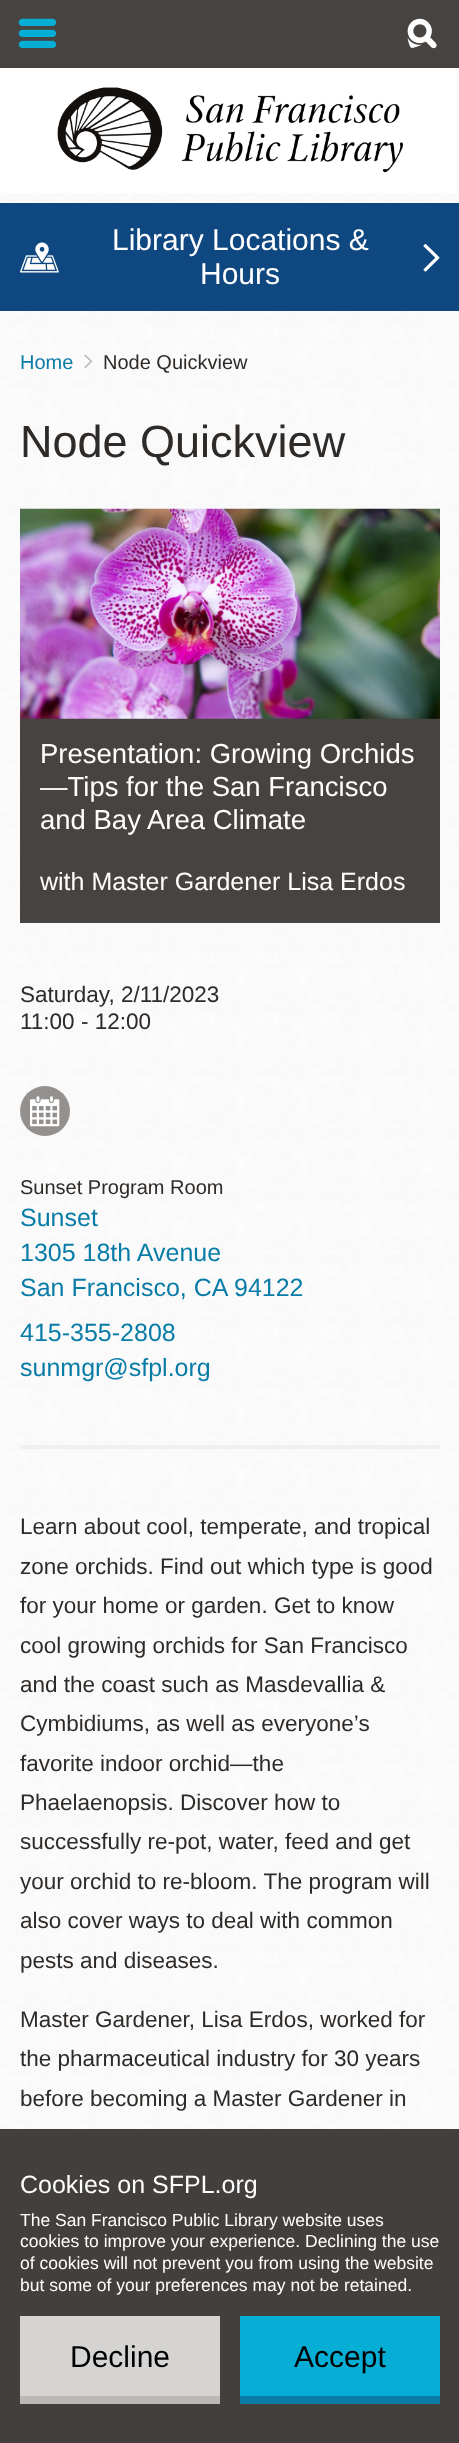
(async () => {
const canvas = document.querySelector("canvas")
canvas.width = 459
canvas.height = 2443
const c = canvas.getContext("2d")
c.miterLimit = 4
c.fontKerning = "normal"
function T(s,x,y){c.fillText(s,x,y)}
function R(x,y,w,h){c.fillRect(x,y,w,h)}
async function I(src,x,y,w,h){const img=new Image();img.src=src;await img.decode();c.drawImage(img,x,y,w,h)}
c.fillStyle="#fff"
R(0,0,459,2443)
await I("1.png",0,193,459,2250)
c.fillStyle="#474340"
R(0,0,459,68)
await I("2.png",18,18,39,30)
await I("3.png",407,18,30,31)
await I("4.png",57,87,346,86)
c.fillStyle="#0f4880"
R(0,203,459,108)
await I("5.png",20,242,39,31)
c.font="30px Liberation Sans"
c.fillStyle="#fff"
T("Library Locations &",112,250)
await I("6.png",423,243,17,29)
T("Hours",200,284)
c.font="20px Liberation Sans"
c.fillStyle="#087ca7"
T("Home",20,369)
await I("7.png",84,354,9,15)
c.fillStyle="#2e2a27"
T("Node Quickview",103,369)
c.font="45px Liberation Sans"
T("Node Quickview",20,457)
c.fillStyle="#474340"
R(20,718,420,205)
await I("8.png",20,508,420,211)
c.font="27.5px Liberation Sans"
c.fillStyle="#fff"
T("Presentation: Growing Orchids",40,763)
T("—Tips for the San Francisco",40,796)
T("and Bay Area Climate",40,829)
c.font="25px Liberation Sans"
T("with Master Gardener Lisa Erdos",40,890)
c.font="22.5px Liberation Sans"
c.fillStyle="#2e2a27"
T("Saturday, 2/11/2023",20,1002)
T("11:00 - 12:00",20,1029)
c.fillStyle="#94908d"
c.beginPath()
c.arc(45,1111,25,0,7)
c.fill()
await I("9.png",30,1096,30,31)
c.font="20px Liberation Sans"
c.fillStyle="#2e2a27"
T("Sunset Program Room",20,1194)
c.font="25px Liberation Sans"
c.fillStyle="#087ca7"
T("Sunset",20,1226)
T("1305 18th Avenue",20,1261)
T("San Francisco, CA",20,1296)
T("94122",234,1296)
T("415-355-2808",20,1341)
T("sunmgr@sfpl.org",20,1376)
c.fillStyle="#f1f0f0"
R(20,1445,420,4)
c.font="22.5px Liberation Sans"
c.fillStyle="#2e2a27"
T("Learn about cool, temperate, and tropical",20,1534)
T("zone orchids. Find out which type is good",20,1574)
T("for your home or garden. Get to know",20,1613)
T("cool growing orchids for San Francisco",20,1653)
T("and the coast such as Masdevallia &",20,1692)
T("Cymbidiums, as well as everyone’s",20,1731)
T("favorite indoor orchid—the",20,1771)
T("Phaelaenopsis. Discover how to",20,1810)
T("successfully re-pot, water, feed and get",20,1849)
T("your orchid to re-bloom. The program will",20,1889)
T("also cover ways to deal with common",20,1928)
T("pests and diseases.",20,1968)
T("Master Gardener, Lisa Erdos, worked for",20,2027)
T("the pharmaceutical industry for 30 years",20,2066)
T("before becoming a Master Gardener in",20,2106)
c.fillStyle="#2e2a27e6"
R(0,2129,459,314)
c.font="25px Liberation Sans"
c.fillStyle="#fff"
T("Cookies on SFPL.org",20,2193)
c.font="17.5px Liberation Sans"
T("The San Francisco Public Library website uses",20,2226)
T("cookies to improve your experience. Declining the use",20,2247)
T("of cookies will not prevent you from using the website",20,2269)
T("but some of your preferences may not be retained.",20,2291)
c.fillStyle="#bbb8b5"
R(20,2396,200,8)
c.fillStyle="#d6d4d2"
R(20,2316,200,80)
c.font="30px Liberation Sans"
c.fillStyle="#000"
T("Decline",70,2367)
c.fillStyle="#087ca7"
R(240,2396,200,8)
c.fillStyle="#06aed5"
R(240,2316,200,80)
c.fillStyle="#000"
T("Accept",294,2367)
})()
